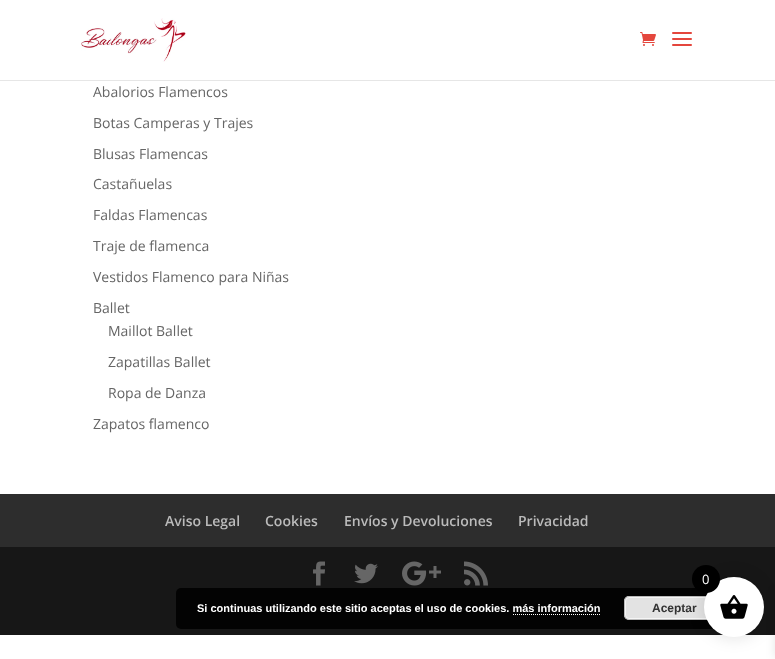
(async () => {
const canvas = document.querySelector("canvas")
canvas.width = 775
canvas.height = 659
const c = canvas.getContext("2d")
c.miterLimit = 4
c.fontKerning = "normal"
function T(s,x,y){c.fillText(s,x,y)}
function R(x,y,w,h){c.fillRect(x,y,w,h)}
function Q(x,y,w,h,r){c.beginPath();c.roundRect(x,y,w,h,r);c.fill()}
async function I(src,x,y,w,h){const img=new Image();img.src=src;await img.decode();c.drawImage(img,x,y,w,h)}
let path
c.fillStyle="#fff"
R(0,0,775,659)
c.fillStyle="#e6e6e6"
R(0,80,775,1)
await I("1.png",81,18,105,44)
await I("2.png",640,32,16,14)
await I("3.png",672,32,20,14)
c.font="14px Open Sans"
c.fillStyle="#666"
T("Abalorios Flamencos",93,97)
T("Botas Camperas y Trajes",93,128)
T("Blusas Flamencas",93,159)
T("Castañuelas",93,189)
T("Faldas Flamencas",93,220)
T("Traje de flamenca",93,251)
T("Vestidos Flamenco para Niñas",93,282)
T("Ballet",93,313)
T("Maillot Ballet",108,336)
T("Zapatillas Ballet",108,367)
T("Ropa de Danza",108,398)
T("Zapatos flamenco",93,429)
c.fillStyle="#2d2d2d"
R(0,494,775,53)
c.font="600 14px Open Sans"
c.fillStyle="#bbb"
T("Aviso Legal",165,526)
T("Cookies",265,526)
T("Envíos y Devoluciones",344,526)
T("Privacidad",518,526)
c.fillStyle="#171717"
R(0,547,775,88)
await I("4.png",313,561,12,25)
await I("5.png",354,563,24,21)
await I("6.png",402,561,39,25)
await I("7.png",464,561,24,25)
c.fillStyle="#000000d9"
Q(176,588,569,41,5)
c.fillStyle="#e3e3e3"
Q(624,596,100,24,5)
c.beginPath()
c.roundRect(625.5,597.5,97,21,3.5)
c.strokeStyle="#f6f6f6"
c.stroke()
c.beginPath()
c.roundRect(624.5,596.5,99,23,4.5)
c.strokeStyle="#bbb"
c.stroke()
c.fillStyle="#0000001a"
c.filter="blur(7.5px)"
c.beginPath()
c.roundRect(702,575,64,64,32)
c.fill()
c.filter="none"
c.filter="blur(5px)"
c.beginPath()
c.rect(775,590,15,68)
c.fill()
c.filter="none"
c.fillStyle="#fff"
c.beginPath()
c.arc(734,607,30,0,7)
c.fill()
c.fillStyle="#000"
c.beginPath()
c.arc(706,579,14,0,7)
c.fill()
c.font="13px Open Sans"
c.fillStyle="#fff"
T("0",702,584)
await I("8.png",720,595,28,24)
c.font="bold 11px Liberation Sans"
T("Si continuas utilizando este sitio aceptas el uso de cookies. más información",197,612)
c.font="bold 12px Liberation Sans"
c.fillStyle="#333"
T("Aceptar",652,612)
path = new Path2D("M513 614.5h88")
c.strokeStyle="#fff"
c.setLineDash([1,1])
c.stroke(path)
})()
